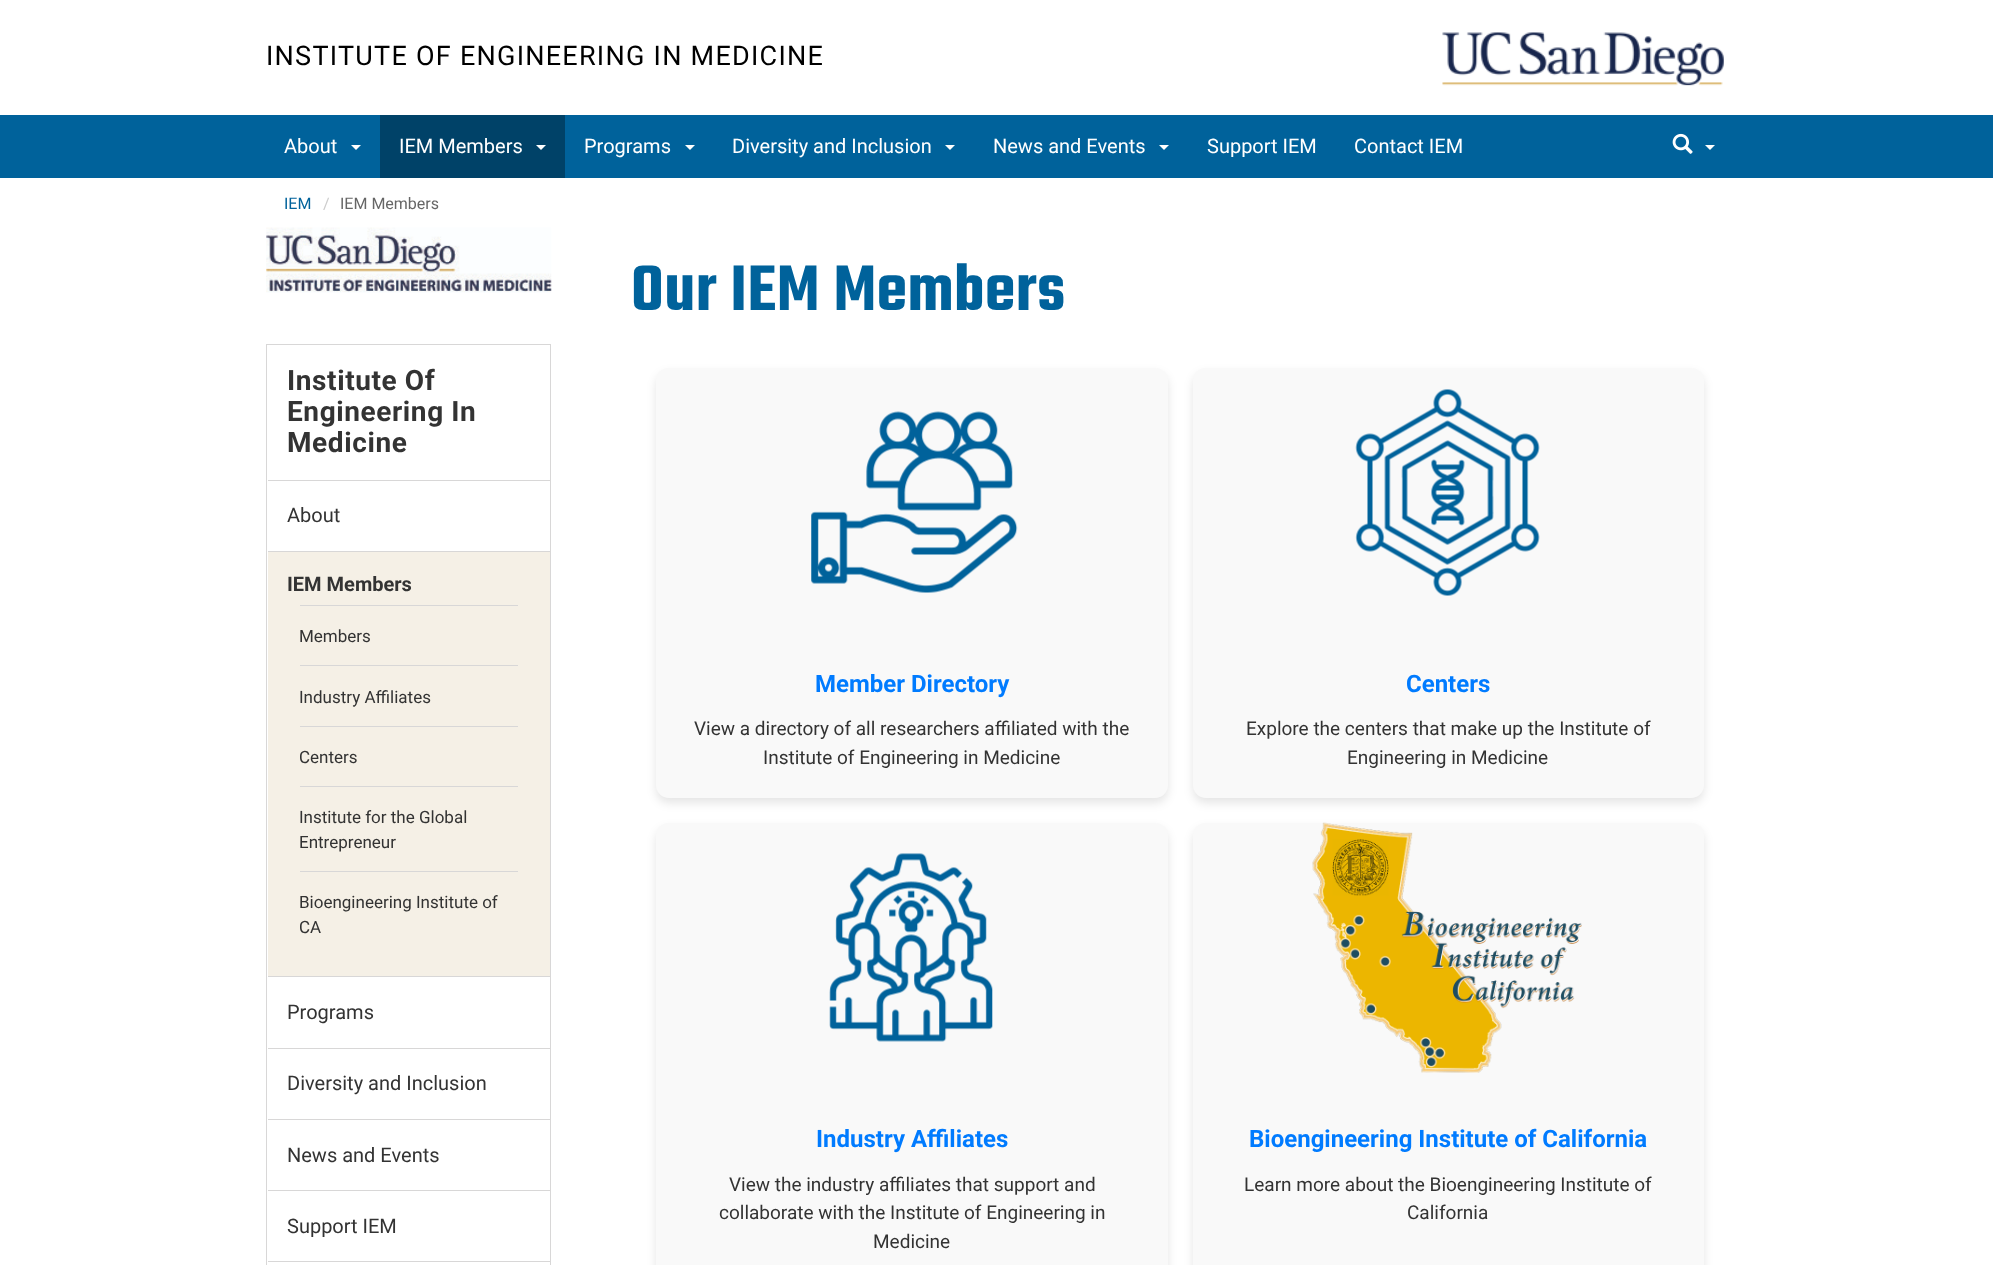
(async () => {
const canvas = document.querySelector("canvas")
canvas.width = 1993
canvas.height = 1265
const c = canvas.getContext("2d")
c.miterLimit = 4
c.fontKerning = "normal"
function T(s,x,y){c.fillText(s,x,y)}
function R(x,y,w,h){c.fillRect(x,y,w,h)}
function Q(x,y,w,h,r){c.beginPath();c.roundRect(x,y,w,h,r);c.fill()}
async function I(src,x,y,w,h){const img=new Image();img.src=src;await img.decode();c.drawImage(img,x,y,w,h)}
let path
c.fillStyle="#fff"
R(0,0,1993,1265)
c.letterSpacing="1.25px"
c.font="27px Roboto"
c.fillStyle="#000"
T("INSTITUTE OF ENGINEERING IN MEDICINE",266,65)
await I("1.png",1442,32,282,54)
c.fillStyle="#00629b"
R(0,115,1993,63)
c.letterSpacing="0px"
c.font="20px Roboto"
c.fillStyle="#fff"
T("About",284,153)
path = new Path2D("M351 145h10l-5 5z")
c.fill(path)
c.fillStyle="#004268"
R(380,115,185,63)
c.fillStyle="#fff"
T("IEM Members",399,153)
path = new Path2D("M536 145h10l-5 5z")
c.fill(path)
T("Programs",584,153)
path = new Path2D("M685 145h10l-5 5z")
c.fill(path)
T("Diversity and Inclusion",732,153)
path = new Path2D("M945 145h10l-5 5z")
c.fill(path)
T("News and Events",993,153)
path = new Path2D("M1159 145h10l-5 5z")
c.fill(path)
T("Support IEM",1207,153)
T("Contact IEM",1354,153)
await I("2.png",1672,133,21,21)
path = new Path2D("M1705 145h10l-5 5z")
c.fill(path)
c.font="16px Roboto"
c.fillStyle="#00629b"
T("IEM",284,209)
c.fillStyle="#ccc"
T("/",323,209)
c.fillStyle="#666"
T("IEM Members",340,209)
await I("3.png",266,227,286,66)
c.strokeStyle="#d8d7d7"
c.strokeRect(266.5,344.5,284,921)
c.letterSpacing="0.6px"
c.font="bold 28px Roboto"
c.fillStyle="#333"
T("Institute Of",287,390)
T("Engineering In",287,421)
T("Medicine",287,452)
c.fillStyle="#d8d7d7"
R(268,480,282,1)
c.letterSpacing="0px"
c.font="20px Roboto"
c.fillStyle="#333"
T("About",287,522)
c.fillStyle="#f5f0e6"
R(268,552,282,424)
c.fillStyle="#d8d7d7"
R(268,551,282,1)
c.font="bold 20px Roboto"
c.fillStyle="#333"
T("IEM Members",287,591)
c.fillStyle="#d8d7d7"
R(300,605,218,1)
c.font="17px Roboto"
c.fillStyle="#333"
T("Members",299,642)
c.fillStyle="#d8d7d7"
R(300,665,218,1)
c.fillStyle="#333"
T("Industry Affiliates",299,703)
c.fillStyle="#d8d7d7"
R(300,726,218,1)
c.fillStyle="#333"
T("Centers",299,763)
c.fillStyle="#d8d7d7"
R(300,786,218,1)
c.fillStyle="#333"
T("Institute for the Global",299,823)
T("Entrepreneur",299,848)
c.fillStyle="#d8d7d7"
R(300,871,218,1)
c.fillStyle="#333"
T("Bioengineering Institute of",299,908)
T("CA",299,933)
c.fillStyle="#d8d7d7"
R(268,976,282,1)
c.font="20px Roboto"
c.fillStyle="#333"
T("Programs",287,1019)
c.fillStyle="#d8d7d7"
R(268,1048,282,1)
c.fillStyle="#333"
T("Diversity and Inclusion",287,1090)
c.fillStyle="#d8d7d7"
R(268,1119,282,1)
c.fillStyle="#333"
T("News and Events",287,1162)
c.fillStyle="#d8d7d7"
R(268,1190,282,1)
c.fillStyle="#333"
T("Support IEM",287,1233)
c.fillStyle="#d8d7d7"
R(268,1261,282,1)
c.letterSpacing="0.6px"
c.font="600 70px Teko"
c.fillStyle="#00629b"
T("Our IEM Members",631,310)
c.fillStyle="#0000001a"
c.filter="blur(5px)"
c.beginPath()
c.roundRect(656,373,512,430,13)
c.fill()
c.filter="none"
c.fillStyle="#f9f9f9"
Q(656,368,512,430,13)
await I("4.png",811,411,207,182)
c.letterSpacing="0px"
c.font="bold 24px Roboto"
c.fillStyle="#007bff"
T("Member Directory",815,692)
c.font="19px Roboto"
c.fillStyle="#333"
T("View a directory of all researchers affiliated with the",694,735)
T("Institute of Engineering in Medicine",763,764)
c.fillStyle="#0000001a"
c.filter="blur(5px)"
c.beginPath()
c.roundRect(1193,373,511,430,13)
c.fill()
c.filter="none"
c.fillStyle="#f9f9f9"
Q(1193,368,511,430,13)
await I("5.png",1355,389,185,207)
c.font="bold 24px Roboto"
c.fillStyle="#007bff"
T("Centers",1406,692)
c.font="19px Roboto"
c.fillStyle="#333"
T("Explore the centers that make up the Institute of",1246,735)
T("Engineering in Medicine",1347,764)
c.fillStyle="#0000001a"
c.filter="blur(5px)"
c.beginPath()
c.roundRect(656,828,512,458,13)
c.fill()
c.filter="none"
c.fillStyle="#f9f9f9"
Q(656,823,512,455,13)
await I("6.png",829,853,164,189)
c.font="bold 24px Roboto"
c.fillStyle="#007bff"
T("Industry Affiliates",816,1147)
c.font="19px Roboto"
c.fillStyle="#333"
T("View the industry affiliates that support and",729,1191)
T("collaborate with the Institute of Engineering in",719,1219)
T("Medicine",873,1248)
c.fillStyle="#0000001a"
c.filter="blur(5px)"
c.beginPath()
c.roundRect(1193,828,511,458,13)
c.fill()
c.filter="none"
c.fillStyle="#f9f9f9"
Q(1193,823,511,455,13)
await I("7.png",1312,822,270,251)
c.font="bold 24px Roboto"
c.fillStyle="#007bff"
T("Bioengineering Institute of California",1249,1147)
c.font="19px Roboto"
c.fillStyle="#333"
T("Learn more about the Bioengineering Institute of",1244,1191)
T("California",1407,1219)
})()
